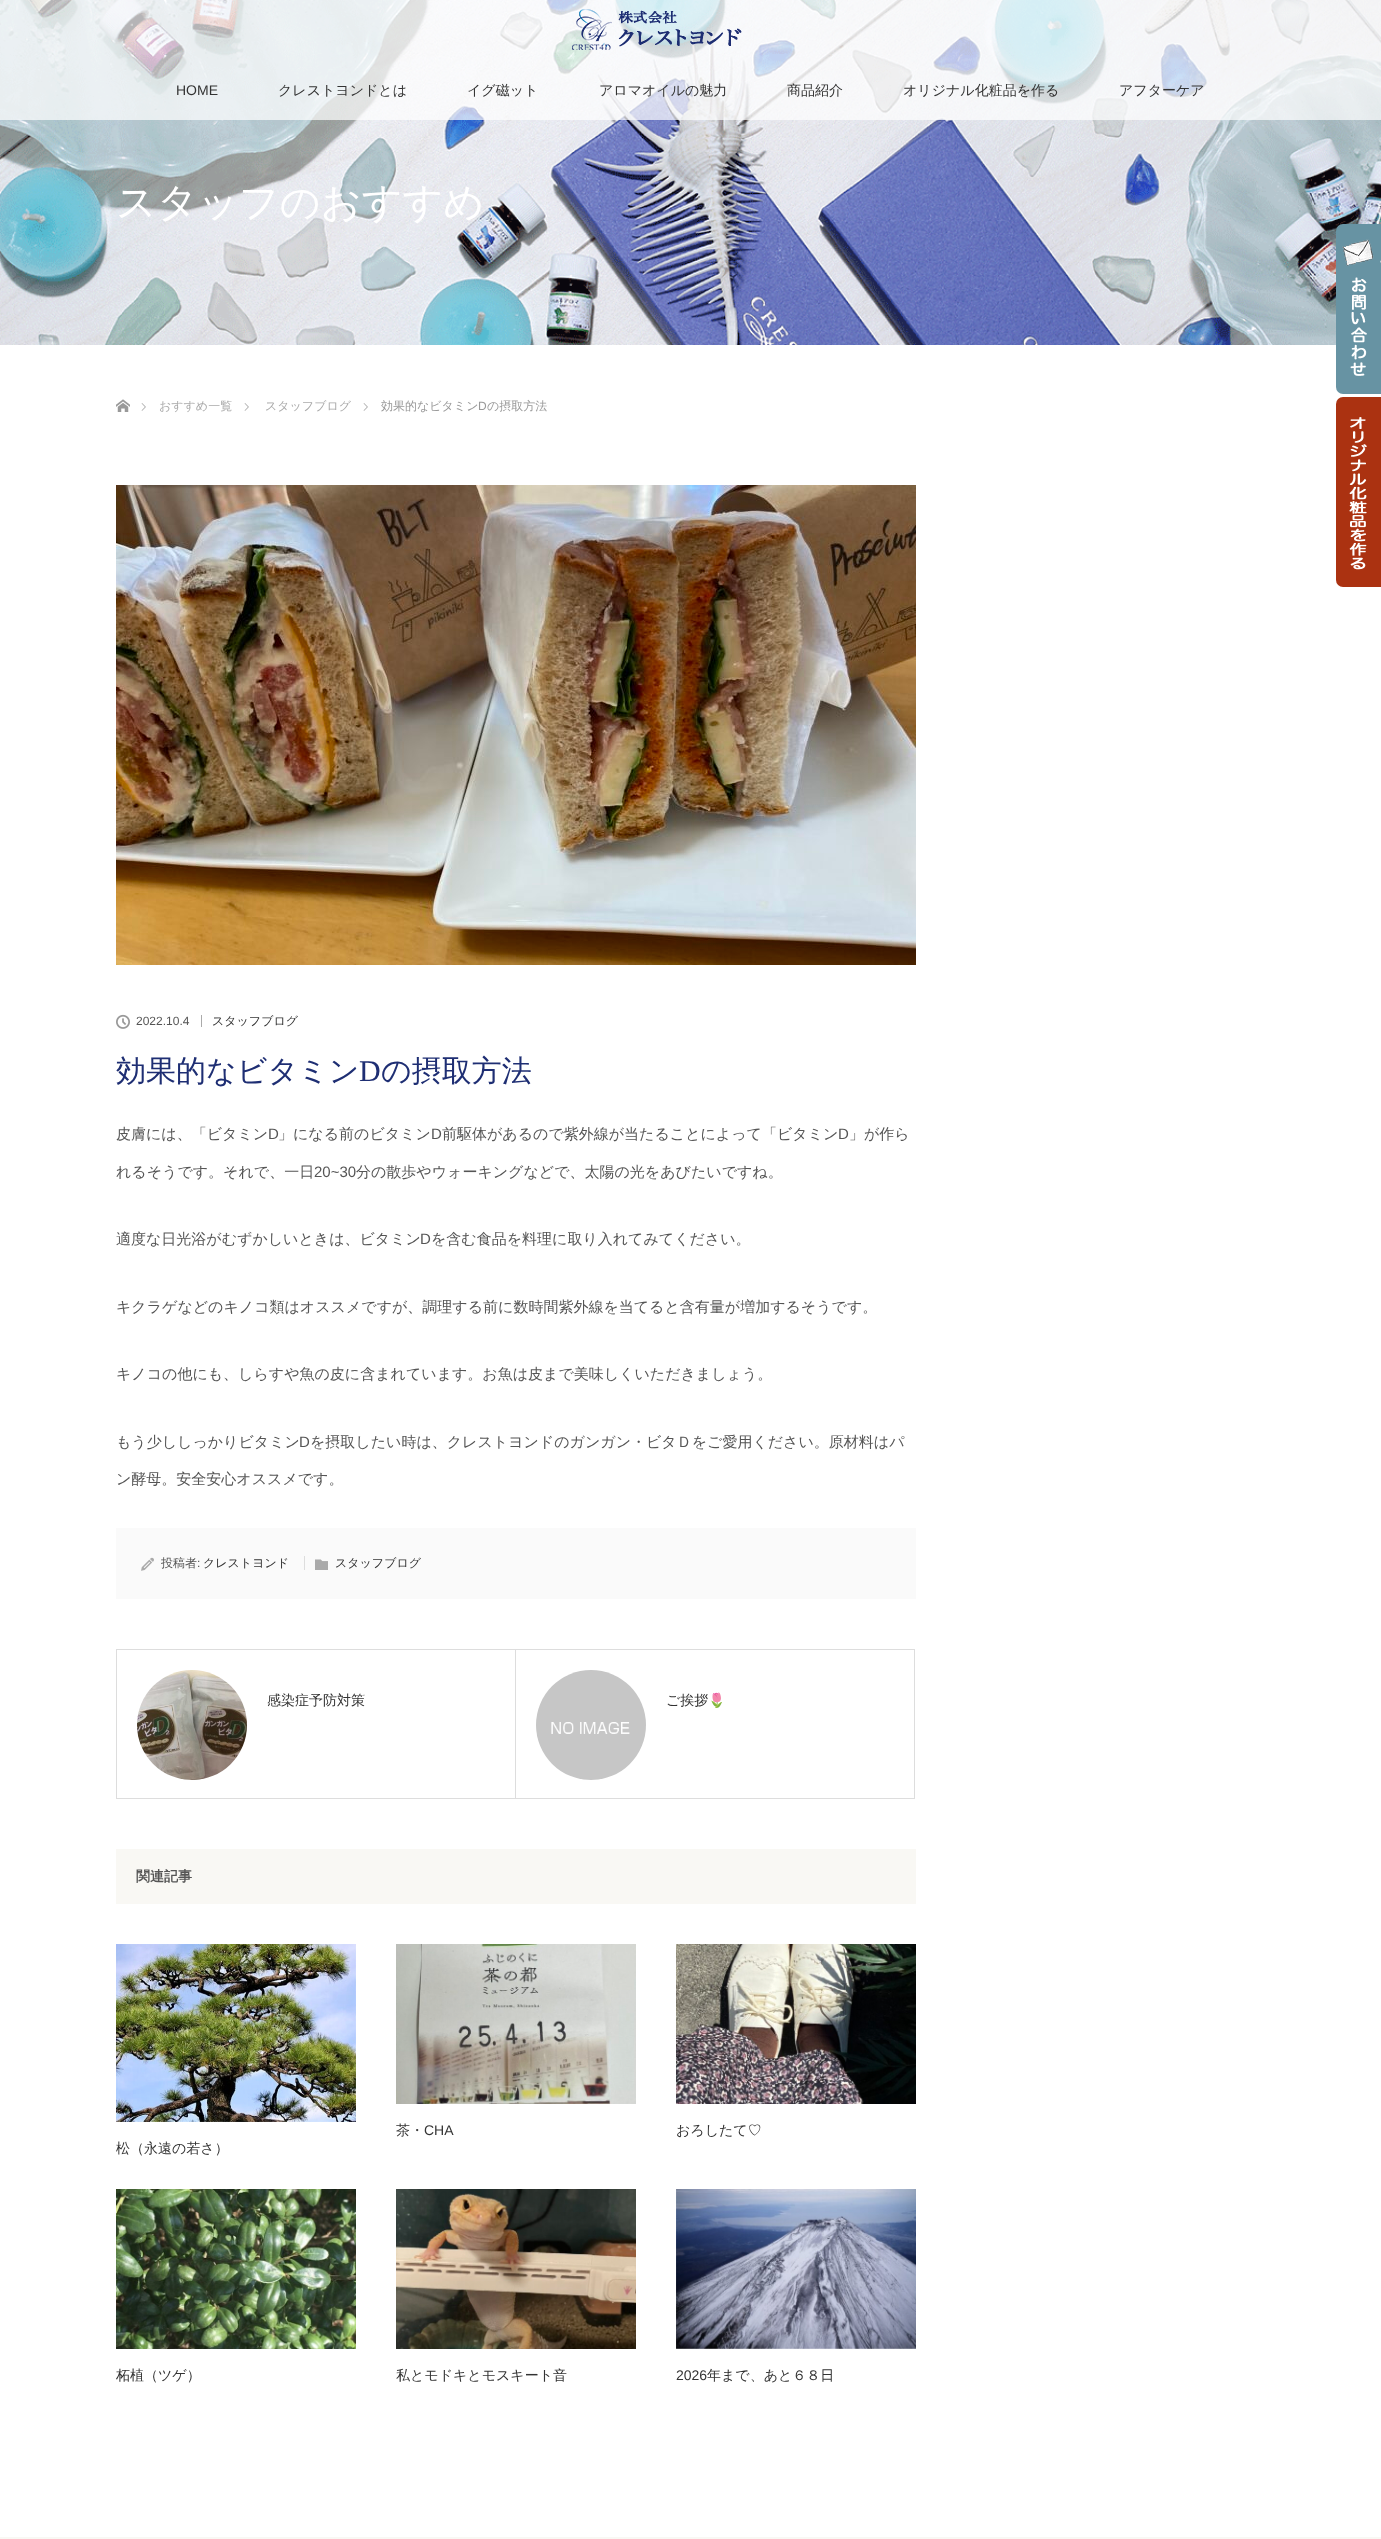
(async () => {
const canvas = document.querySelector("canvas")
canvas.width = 1381
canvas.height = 2539
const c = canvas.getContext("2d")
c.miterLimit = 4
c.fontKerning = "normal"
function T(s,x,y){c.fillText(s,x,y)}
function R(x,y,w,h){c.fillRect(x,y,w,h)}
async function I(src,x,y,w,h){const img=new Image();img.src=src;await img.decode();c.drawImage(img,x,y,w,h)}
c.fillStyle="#fff"
R(0,0,1381,2539)
await I("2.png",0,0,1381,345)
c.fillStyle="#ffffffb3"
R(0,0,1381,120)
await I("1.png",572,9,170,41)
c.font="14px Liberation Sans"
c.fillStyle="#333"
T("HOME",176,95)
c.font="500 14px WenQuanYi Zen Hei"
T("クレストヨンドとは",278,95)
T("イグ磁ット",467,95)
T("アロマオイルの魅力",599,95)
T("商品紹介",787,95)
T("オリジナル化粧品を作る",903,95)
T("アフターケア",1119,95)
c.font="500 40px WenQuanYi Zen Hei"
c.fillStyle="#fff"
T("スタッフのおすすめ",116,216)
await I("3.png",116,399,14,13)
await I("4.png",141,403,5,8)
c.font="500 12px WenQuanYi Zen Hei"
c.fillStyle="#aaa"
T("おすすめ一覧",159,410)
await I("4.png",244,403,5,8)
T("スタッフブログ",265,410)
await I("4.png",363,403,5,8)
c.fillStyle="#999"
T("効果的なビタミン",381,410)
c.font="12px Liberation Sans"
T("D",478,410)
c.font="500 12px WenQuanYi Zen Hei"
T("の摂取方法",487,410)
c.fillStyle="#6793a3"
c.beginPath()
c.roundRect(1336,224,45,170,[7,0,0,7])
c.fill()
await I("5.png",1342,239,39,137)
c.fillStyle="#ab3211"
c.beginPath()
c.roundRect(1336,397,45,190,[7,0,0,7])
c.fill()
await I("6.png",1349,417,18,153)
await I("7.png",116,485,800,480)
await I("8.png",116,1014,14,15)
c.font="12px Liberation Sans"
c.fillStyle="#555"
T("2022.10.4",136,1025)
c.fillStyle="#aaa"
R(201,1015,1,12)
c.font="500 12px WenQuanYi Zen Hei"
c.fillStyle="#333"
T("スタッフブログ",212,1025)
c.font="500 30px WenQuanYi Zen Hei"
c.fillStyle="#1e2e73"
T("効果的なビタミン",116,1081)
c.font="30px Liberation Serif"
T("D",359,1081)
c.font="500 30px WenQuanYi Zen Hei"
T("の摂取方法",381,1081)
c.font="500 15px WenQuanYi Zen Hei"
c.fillStyle="#555"
T("皮膚には、「ビタミン",116,1139)
c.font="15px Liberation Sans"
T("D",268,1139)
c.font="500 15px WenQuanYi Zen Hei"
T("」になる前のビタミン",278,1139)
c.font="15px Liberation Sans"
T("D",431,1139)
c.font="500 15px WenQuanYi Zen Hei"
T("前駆体があるので紫外線が当たることによって「ビタミン",442,1139)
c.font="15px Liberation Sans"
T("D",838,1139)
c.font="500 15px WenQuanYi Zen Hei"
T("」が作ら",849,1139)
T("れるそうです。それで、一日",116,1177)
c.font="15px Liberation Sans"
T("20~30",314,1177)
c.font="500 15px WenQuanYi Zen Hei"
T("分の散歩やウォーキングなどで、太陽の光をあびたいですね。",356,1177)
T("適度な日光浴がむずかしいときは、ビタミン",116,1244)
c.font="15px Liberation Sans"
T("D",420,1244)
c.font="500 15px WenQuanYi Zen Hei"
T("を含む食品を料理に取り入れてみてください。",431,1244)
T("キクラゲなどのキノコ類はオススメですが、調理する前に数時間紫外線を当てると含有量が増加するそうです。",116,1312)
T("キノコの他にも、しらすや魚の皮に含まれています。お魚は皮まで美味しくいただきましょう。",116,1379)
T("もう少ししっかりビタミン",116,1447)
c.font="15px Liberation Sans"
T("D",299,1447)
c.font="500 15px WenQuanYi Zen Hei"
T("を摂取したい時は、クレストヨンドのガンガン・ビタＤをご愛用ください。原材料はパ",310,1447)
T("ン酵母。安全安心オススメです。",116,1484)
c.fillStyle="#fafafa"
R(116,1528,800,71)
c.fillStyle="#ddd"
R(304,1556,1,14)
await I("9.png",141,1557,13,14)
c.font="500 12px WenQuanYi Zen Hei"
c.fillStyle="#555"
T("投稿者",161,1567)
c.font="12px Liberation Sans"
T(":",197,1567)
c.font="500 12px WenQuanYi Zen Hei"
c.fillStyle="#333"
T("クレストヨンド",203,1567)
await I("10.png",315,1559,13,11)
T("スタッフブログ",335,1567)
c.strokeStyle="#ddd"
c.strokeRect(116.5,1649.5,399,149)
await I("11.png",137,1670,110,110)
c.font="500 14px WenQuanYi Zen Hei"
T("感染症予防対策",267,1705)
c.strokeRect(515.5,1649.5,399,149)
await I("12.png",536,1670,110,110)
T("ご挨拶",666,1705)
c.font="14px Noto Color Emoji"
T("🌷",708,1705)
c.fillStyle="#f9f8f4"
R(116,1849,800,55)
c.font="bold 14px WenQuanYi Zen Hei"
c.fillStyle="#555"
T("関連記事",136,1881)
await I("13.png",396,1944,240,160)
c.font="500 14px WenQuanYi Zen Hei"
c.fillStyle="#333"
T("茶・",396,2135)
c.font="14px Liberation Sans"
T("CHA",424,2135)
await I("14.png",676,1944,240,160)
c.font="500 14px WenQuanYi Zen Hei"
T("おろしたて♡",676,2135)
await I("15.png",116,1944,240,178)
T("松（永遠の若さ）",116,2153)
await I("16.png",116,2189,240,160)
T("柘植（ツゲ）",116,2380)
await I("17.png",396,2189,240,160)
T("私とモドキとモスキート音",396,2380)
await I("18.png",676,2189,240,160)
c.font="14px Liberation Sans"
T("2026",676,2380)
c.font="500 14px WenQuanYi Zen Hei"
T("年まで、あと６８日",707,2380)
c.fillStyle="#f9f8f4"
R(0,2537,1381,2)
})()
